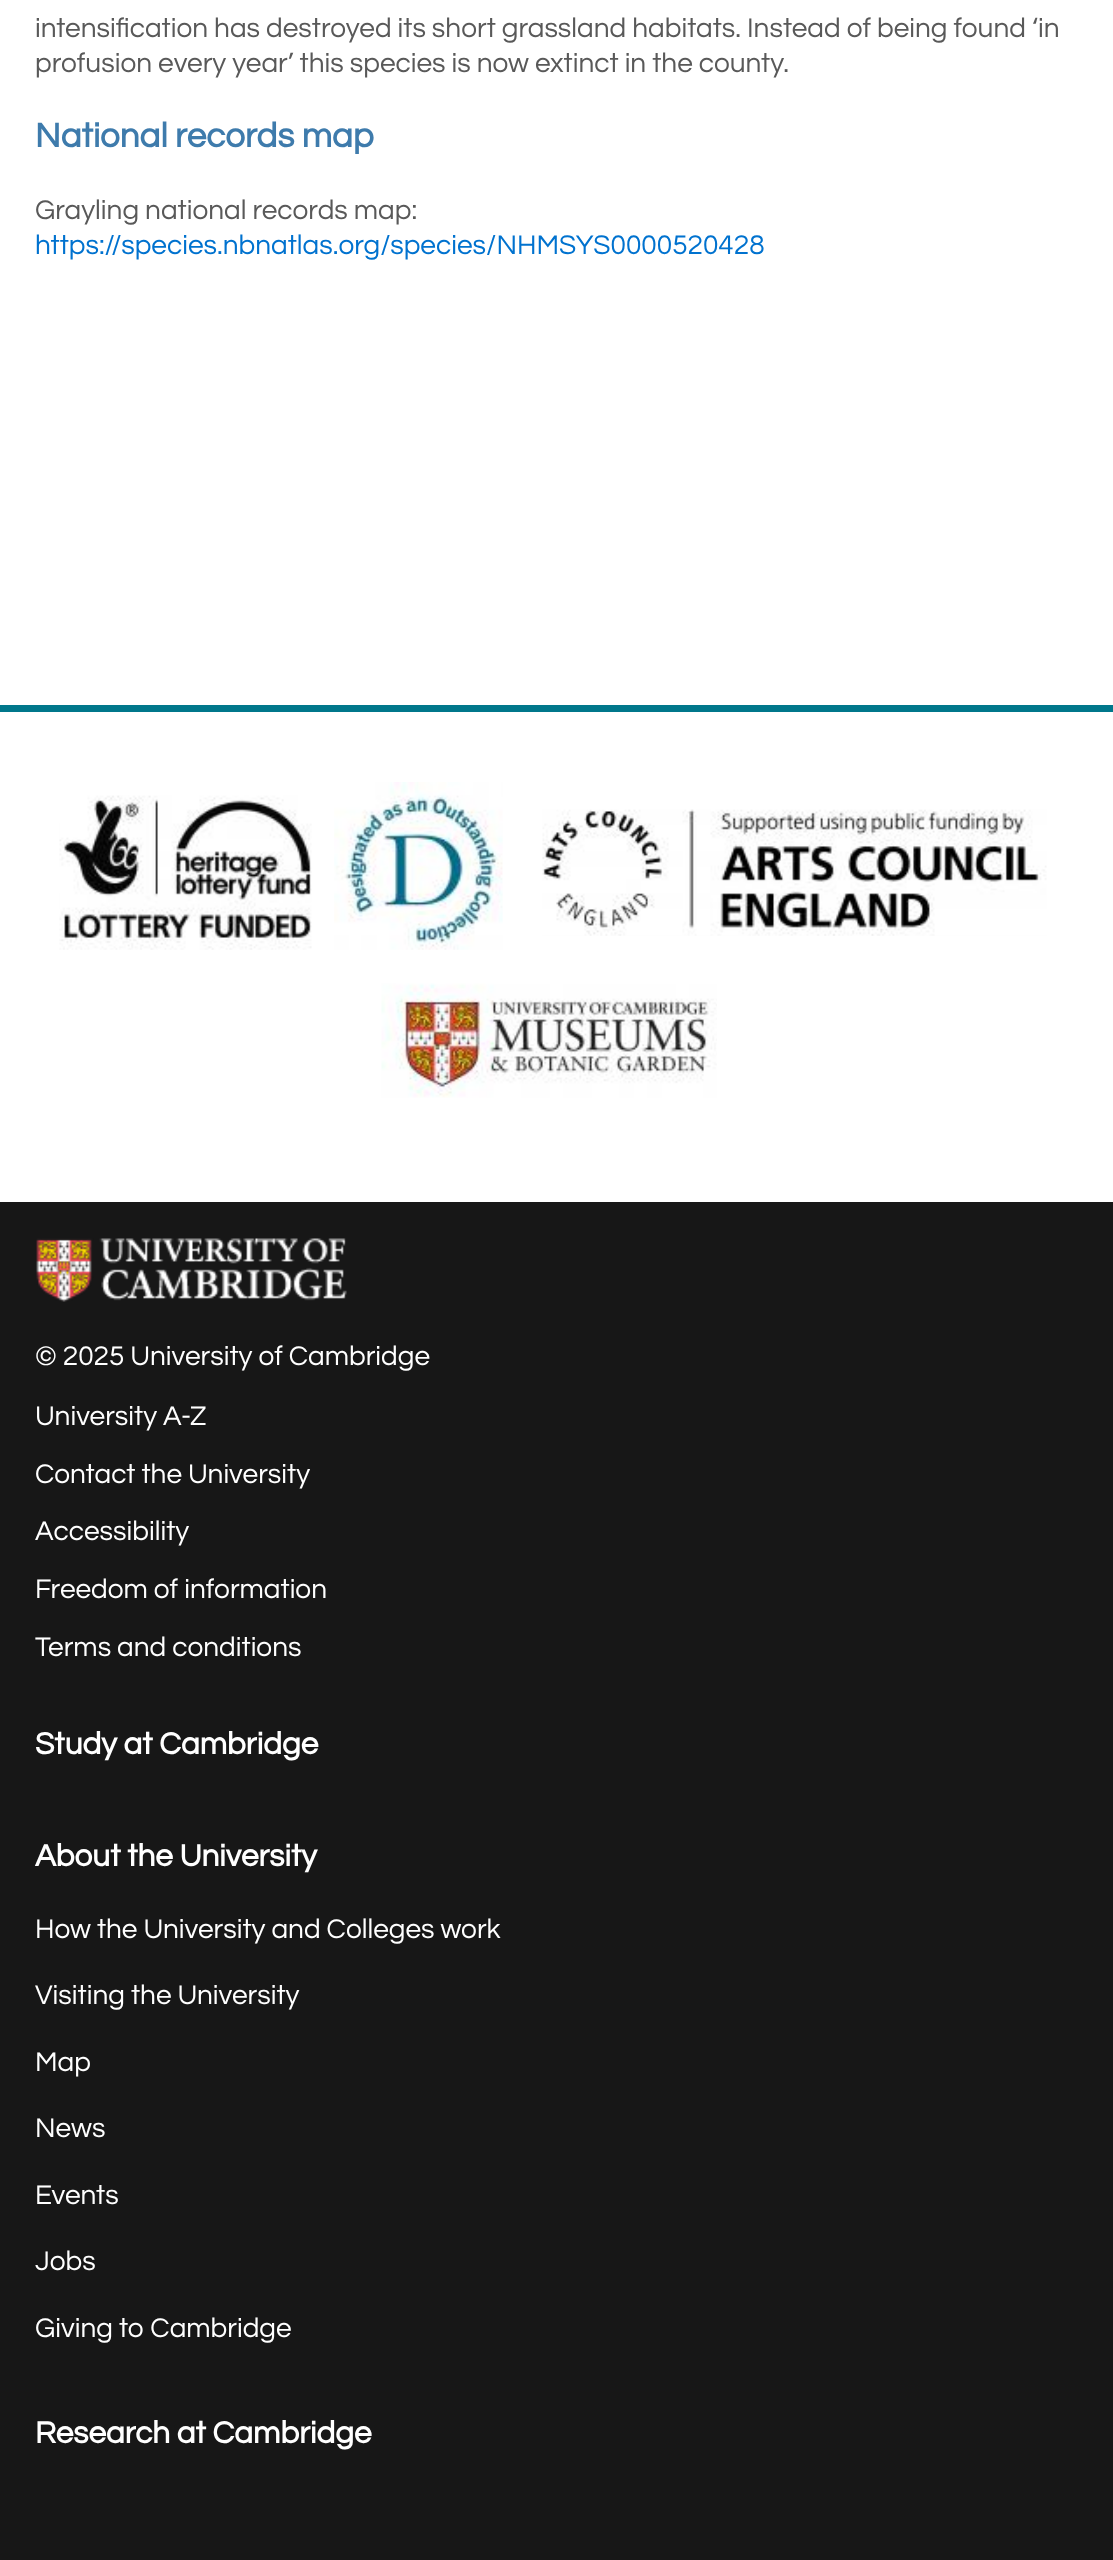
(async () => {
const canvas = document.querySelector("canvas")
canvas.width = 1113
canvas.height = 2560
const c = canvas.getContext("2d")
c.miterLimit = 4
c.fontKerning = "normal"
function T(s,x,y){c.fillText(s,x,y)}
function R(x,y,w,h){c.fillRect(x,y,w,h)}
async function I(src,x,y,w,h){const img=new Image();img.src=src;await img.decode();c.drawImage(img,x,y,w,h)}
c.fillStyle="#fff"
R(0,0,1113,2560)
c.font="28px Questrial"
c.fillStyle="#595959"
T("intensification has destroyed its short grassland habitats. Instead of being found ‘in",35,37)
T("profusion every year’ this species is now extinct in the county.",35,72)
c.font="bold 35px Questrial"
c.fillStyle="#3e7bac"
T("National records map",35,147)
c.font="28px Questrial"
c.fillStyle="#595959"
T("Grayling national records map:",35,219)
c.fillStyle="#0072cf"
T("https://species.nbnatlas.org/species/NHMSYS0000520428",35,254)
c.fillStyle="#00778b"
R(0,705,1113,7)
await I("1.png",59,795,253,155)
await I("2.png",334,782,169,168)
await I("3.png",542,809,505,127)
await I("4.png",381,983,336,115)
c.fillStyle="#171717"
R(0,1202,1113,1358)
await I("5.png",36,1238,311,64)
c.fillStyle="#fff"
T("© 2025 University of Cambridge",35,1365)
T("University A-Z",35,1425)
T("Contact the University",35,1483)
T("Accessibility",35,1540)
T("Freedom of information",35,1598)
T("Terms and conditions",35,1656)
c.font="bold 31.5px Questrial"
T("Study at Cambridge",35,1754)
T("About the University",35,1866)
c.font="28px Questrial"
T("How the University and Colleges work",35,1938)
T("Visiting the University",35,2004)
T("Map",35,2071)
T("News",35,2137)
T("Events",35,2204)
T("Jobs",35,2270)
T("Giving to Cambridge",35,2337)
c.font="bold 31.5px Questrial"
T("Research at Cambridge",35,2443)
})()
